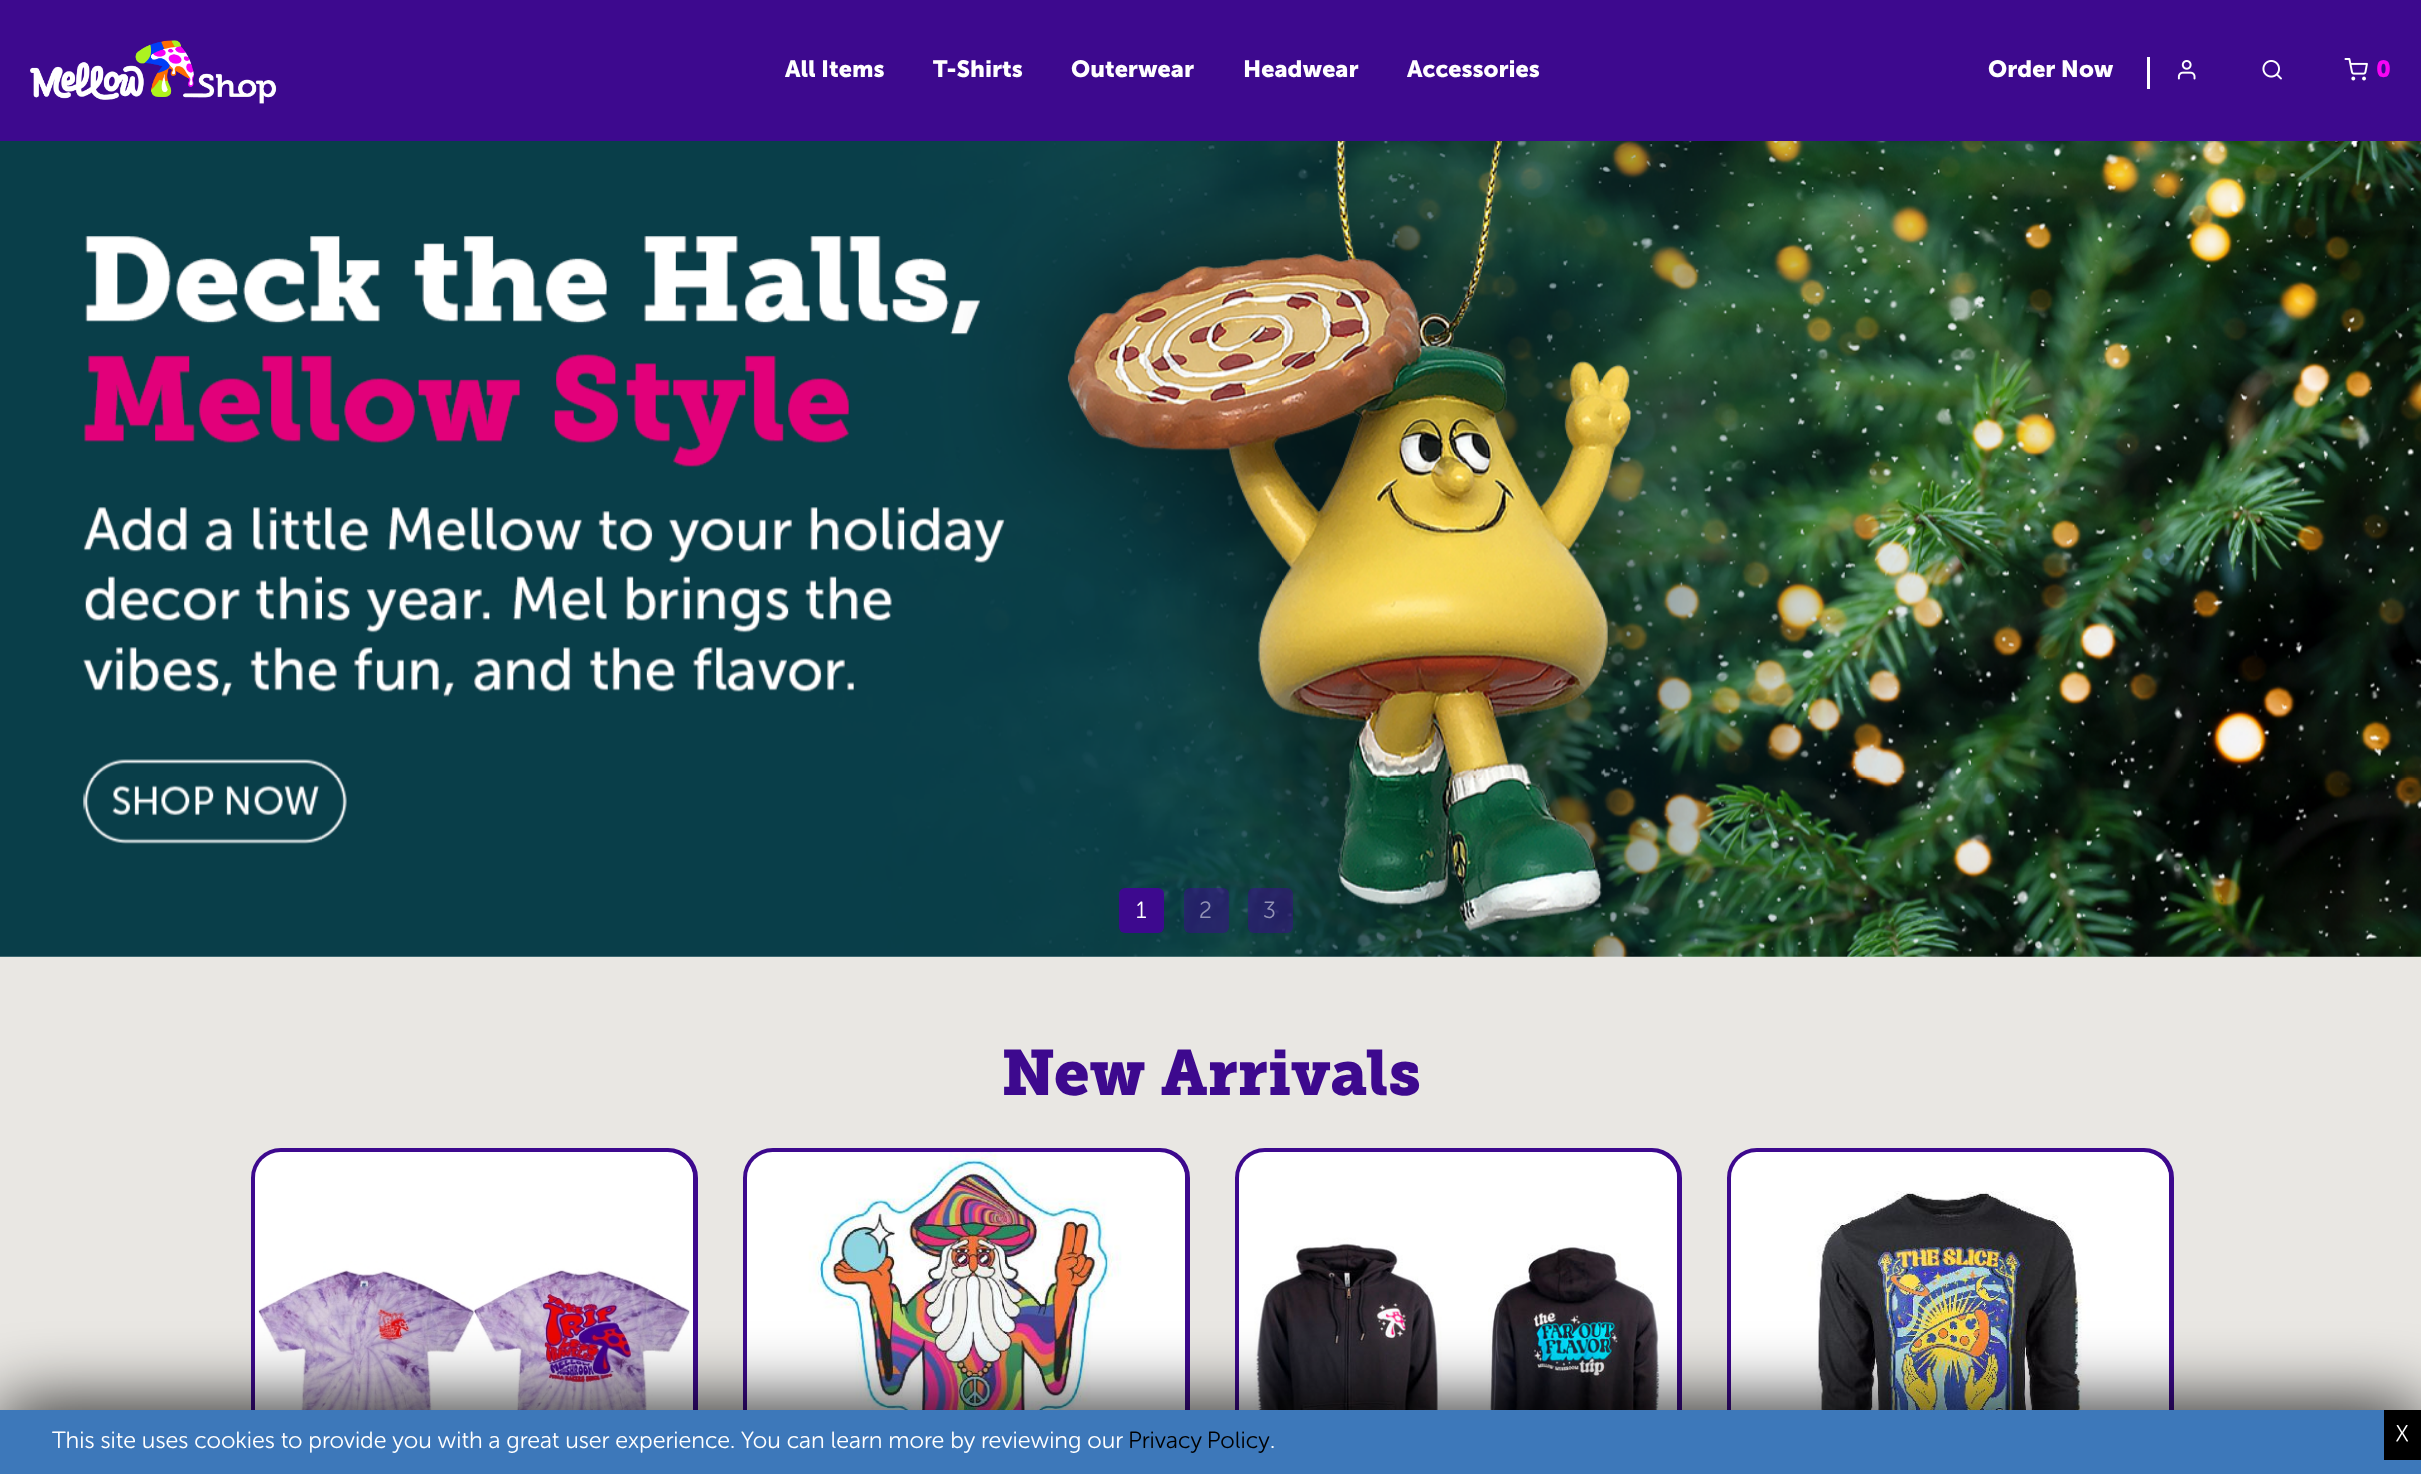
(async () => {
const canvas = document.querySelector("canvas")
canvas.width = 2421
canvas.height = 1474
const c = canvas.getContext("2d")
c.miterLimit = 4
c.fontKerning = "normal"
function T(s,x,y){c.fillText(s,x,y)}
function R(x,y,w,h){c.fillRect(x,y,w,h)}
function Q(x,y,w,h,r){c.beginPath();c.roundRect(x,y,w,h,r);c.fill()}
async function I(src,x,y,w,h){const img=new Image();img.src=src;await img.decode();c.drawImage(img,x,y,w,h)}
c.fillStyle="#fff"
R(0,0,2421,1474)
c.fillStyle="#3d098e"
R(0,0,2421,141)
await I("1.png",30,40,247,64)
c.font="bold 23.45px Museo Sans"
c.fillStyle="#fff"
T("All Items",785,77)
T("T-Shirts",933,77)
T("Outerwear",1071,77)
T("Headwear",1243,77)
T("Accessories",1407,77)
T("Order Now",1988,77)
R(2147,57,3,32)
await I("2.png",2177,60,19,20)
await I("3.png",2262,60,20,20)
await I("4.png",2344,58,24,23)
c.fillStyle="#f804f4"
T("0",2376,77)
await I("5.png",0,141,2421,816)
c.fillStyle="#3d098e"
Q(1119,888,45,45,6)
c.font="300 23.45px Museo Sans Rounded"
c.fillStyle="#fff"
T("1",1136,918)
c.fillStyle="#3d098e80"
Q(1184,888,45,45,6)
c.fillStyle="#9292b4"
T("2",1199,918)
c.fillStyle="#3d098e80"
Q(1248,888,45,45,6)
c.fillStyle="#9292b4"
T("3",1263,918)
c.fillStyle="#e9e7e3"
R(0,957,2421,453)
c.font="bold 63.5px Museo Slab"
c.fillStyle="#3d098e"
T("New Arrivals",1001,1095)
c.beginPath()
c.roundRect(253.5,1150.5,442,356,27.5)
c.strokeStyle="#3d098e"
c.lineWidth=5
c.stroke()
await I("6.png",255,1152,438,258)
c.beginPath()
c.roundRect(745.5,1150.5,442,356,27.5)
c.stroke()
await I("7.png",747,1152,438,258)
c.beginPath()
c.roundRect(1237.5,1150.5,442,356,27.5)
c.stroke()
await I("8.png",1239,1152,438,258)
c.beginPath()
c.roundRect(1729.5,1150.5,442,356,27.5)
c.stroke()
await I("9.png",1731,1152,438,258)
c.fillStyle="#000"
c.filter="blur(37.5px)"
c.beginPath()
c.rect(0,1410,2421,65)
c.fill()
c.filter="none"
c.fillStyle="#3d78ba"
R(0,1410,2421,64)
c.font="300 23.45px Museo Sans Rounded"
c.fillStyle="#fff"
T("This site uses cookies to provide you with a great user experience. You can learn more by reviewing our",52,1448)
c.wordSpacing="-1px"
c.fillStyle="#000"
T("Privacy Policy",1128,1448)
c.wordSpacing="0px"
c.fillStyle="#fff"
T(".",1270,1448)
c.fillStyle="#000"
R(2384,1410,37,50)
await I("10.png",2396,1425,13,17)
})()
